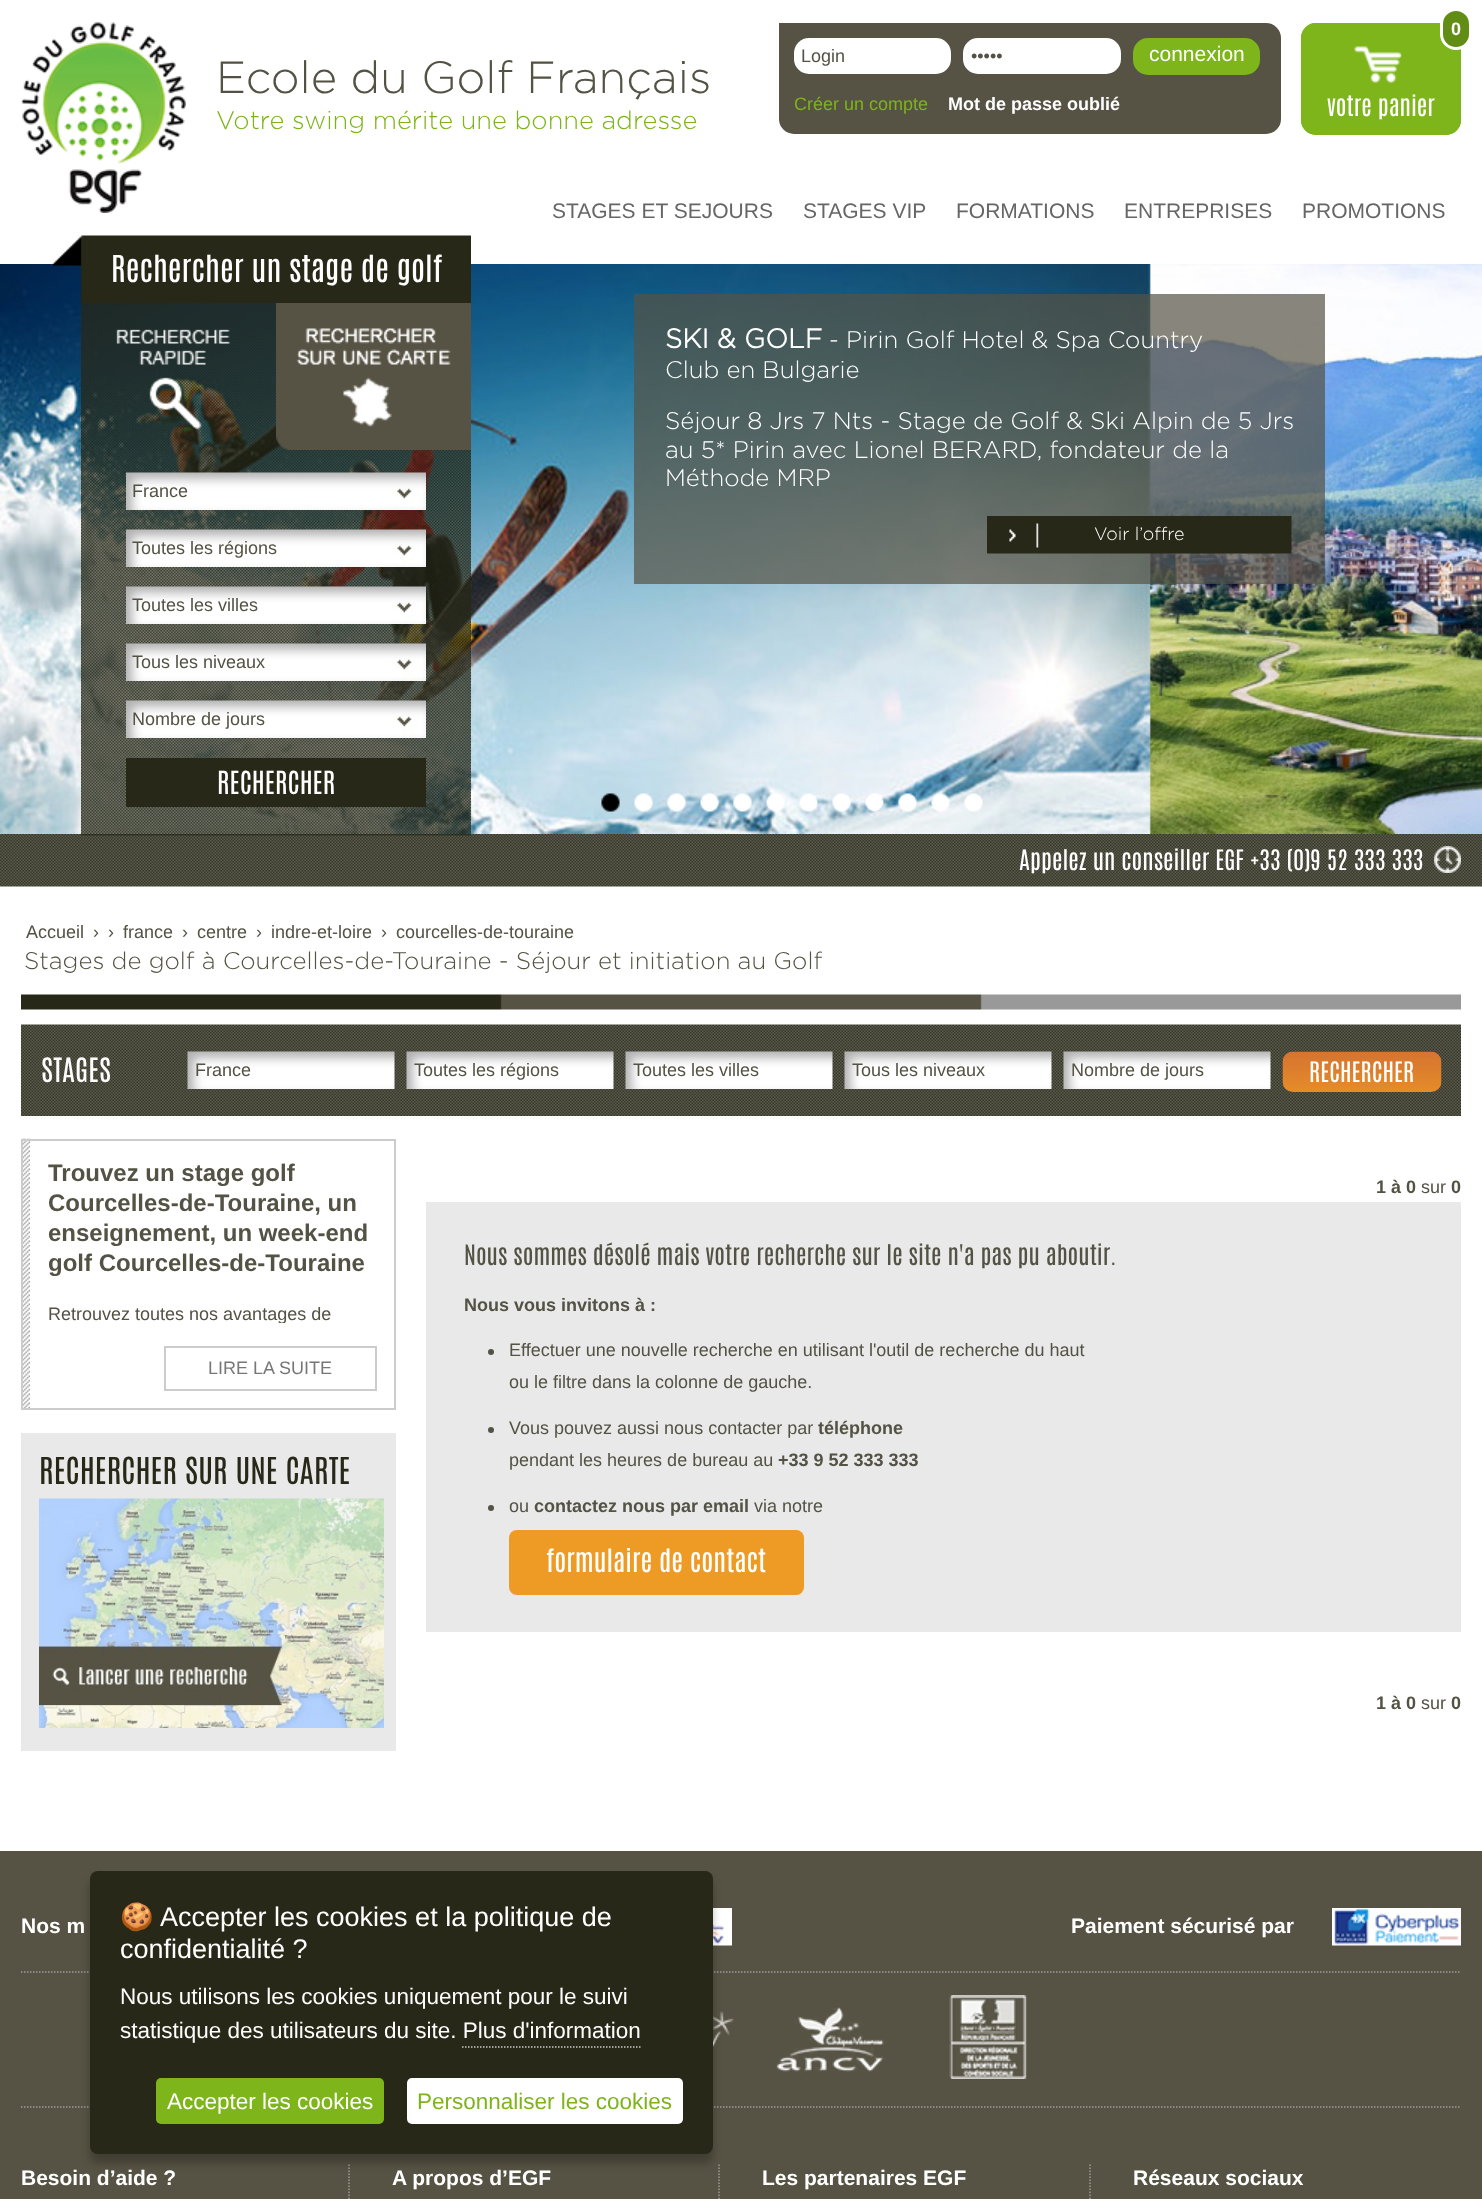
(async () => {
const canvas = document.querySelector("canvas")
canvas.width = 1482
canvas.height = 2199
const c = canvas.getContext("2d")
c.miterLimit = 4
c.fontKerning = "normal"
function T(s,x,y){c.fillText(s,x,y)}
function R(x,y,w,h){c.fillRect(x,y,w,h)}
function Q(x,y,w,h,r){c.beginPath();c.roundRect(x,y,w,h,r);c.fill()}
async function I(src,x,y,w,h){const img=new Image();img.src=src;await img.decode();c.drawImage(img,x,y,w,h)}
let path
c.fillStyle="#fff"
R(0,0,1482,2199)
await I("1.png",21,22,165,191)
c.font="300 45px Gotham"
c.fillStyle="#535244"
T("Ecole du Golf Français",216,93)
c.font="300 25.5px Gotham"
c.fillStyle="#7db41a"
T("Votre swing mérite une bonne adresse",216,129)
c.fillStyle="#565344"
c.beginPath()
c.roundRect(779,23,502,111,[0,15,15,15])
c.fill()
c.fillStyle="#fff"
Q(794,38,157,36,15)
c.font="18px Liberation Sans"
c.fillStyle="#535244"
T("Login",801,62)
c.fillStyle="#fff"
Q(963,38,158,36,15)
c.fillStyle="#535244"
T("•••••",971,62)
c.fillStyle="#7db51b"
Q(1133,38,127,37,15)
c.font="21px Liberation Sans"
c.fillStyle="#fff"
T("connexion",1149,61)
c.font="18px Liberation Sans"
c.fillStyle="#7db41a"
T("Créer un compte",794,110)
c.font="bold 18px Liberation Sans"
c.fillStyle="#fff"
T("Mot de passe oublié",948,110)
c.fillStyle="#7db51b"
c.beginPath()
c.roundRect(1301,23,160,112,[15,0,15,15])
c.fill()
await I("2.png",1354,46,48,37)
c.beginPath()
c.roundRect(1302,24,158,110,[14,0,14,14])
c.strokeStyle="#7db51b"
c.lineWidth=2
c.stroke()
c.fillStyle="#618d15"
c.beginPath()
c.roundRect(1441.5,9.5,29,39,14.5)
c.fill()
c.strokeStyle="#fff"
c.lineWidth=3
c.stroke()
c.fillStyle="#fff"
T("0",1451,35)
c.font="24px Antonio"
T("votre panier",1327,116)
c.font="21px Liberation Sans"
c.fillStyle="#666"
T("STAGES ET SEJOURS",552,218)
T("STAGES VIP",803,218)
T("FORMATIONS",956,218)
T("ENTREPRISES",1124,218)
T("PROMOTIONS",1302,218)
await I("12.png",0,264,1482,570)
await I("26.png",0,834,1482,53)
await I("3.png",81,300,390,536)
await I("4.png",51,235,420,68)
c.font="31.5px Antonio"
c.fillStyle="#fff"
T("Rechercher un stage de golf",111,282)
await I("5.png",126,472,300,38)
c.font="18px Liberation Sans"
c.fillStyle="#535244"
T("France",132,497)
await I("6.png",126,529,300,38)
T("Toutes les régions",132,554)
await I("7.png",126,586,300,38)
T("Toutes les villes",132,611)
await I("8.png",126,643,300,38)
T("Tous les niveaux",132,668)
await I("9.png",126,700,300,38)
T("Nombre de jours",132,725)
c.fillStyle="#272817"
R(126,758,300,49)
c.font="27px Antonio"
c.fillStyle="#fff"
T("RECHERCHER",217,794)
await I("10.png",116,329,114,101)
await I("11.png",276,303,195,147)
c.fillStyle="#555344b3"
R(634,294,691,290)
c.font="bold 27px Gotham"
c.fillStyle="#fff"
T("SKI & GOLF",665,348)
c.font="300 24px Gotham"
T("- Pirin Golf Hotel & Spa Country",829,348)
T("Club en Bulgarie",665,378)
T("Séjour 8 Jrs 7 Nts - Stage de Golf & Ski Alpin de 5 Jrs",665,429)
T("au 5* Pirin avec Lionel BERARD, fondateur de la",665,458)
T("Méthode MRP",665,486)
await I("13.png",987,516,305,38)
c.font="300 18px Gotham"
T("Voir l’offre",1094,540)
await I("14.png",601,793,19,19)
await I("15.png",634,793,19,19)
await I("16.png",667,793,19,19)
await I("17.png",700,793,19,19)
await I("18.png",733,793,19,19)
await I("19.png",766,793,19,19)
await I("20.png",799,793,19,19)
await I("21.png",832,793,19,19)
await I("22.png",865,793,19,19)
await I("23.png",898,793,19,19)
await I("24.png",931,793,19,19)
await I("25.png",964,793,19,19)
await I("27.png",1434,846,27,27)
c.font="24px Antonio"
T("Appelez un conseiller EGF +33 (0)9 52 333 333",1019,870)
c.font="18px Liberation Sans"
c.fillStyle="#535244"
T("Accueil",26,938)
T("›",93,938)
T("›",108,938)
T("france",123,938)
T("›",182,938)
T("centre",197,938)
T("›",256,938)
T("indre-et-loire",271,938)
T("›",381,938)
T("courcelles-de-touraine",396,938)
c.font="300 24px Gotham"
T("Stages de golf à Courcelles-de-Touraine - Séjour et initiation au Golf",24,969)
await I("28.png",21,994,1440,16)
await I("29.png",21,1024,1440,92)
c.font="28.5px Antonio"
c.fillStyle="#fff"
T("STAGES",41,1082)
await I("30.png",187,1051,208,38)
c.font="18px Liberation Sans"
c.fillStyle="#535244"
T("France",195,1076)
await I("31.png",406,1051,208,38)
T("Toutes les régions",414,1076)
await I("31.png",625,1051,208,38)
T("Toutes les villes",633,1076)
await I("30.png",844,1051,208,38)
T("Tous les niveaux",852,1076)
await I("30.png",1063,1051,208,38)
T("Nombre de jours",1071,1076)
await I("32.png",1282,1051,160,41)
c.font="24px Antonio"
c.fillStyle="#fff"
T("RECHERCHER",1309,1082)
await I("33.png",22,1138,8,270)
c.strokeStyle="#ccc"
c.lineWidth=2
c.strokeRect(22,1140,373,269)
c.font="bold 24px Liberation Sans"
c.fillStyle="#535244"
T("Trouvez un stage golf",48,1181)
T("Courcelles-de-Touraine, un",48,1211)
T("enseignement, un week-end",48,1241)
T("golf Courcelles-de-Touraine",48,1271)
c.save()
c.beginPath()
c.rect(48,1158,329,165)
c.clip()
c.font="18px Liberation Sans"
T("Retrouvez toutes nos avantages de",48,1320)
c.restore()
c.strokeRect(165,1347,211,43)
c.font="18px Liberation Sans"
c.fillStyle="#777"
T("LIRE LA SUITE",208,1374)
c.fillStyle="#e9e9e9"
R(21,1433,375,318)
c.font="31.5px Antonio"
c.fillStyle="#272817"
T("RECHERCHER SUR UNE CARTE",39,1484)
await I("34.png",39,1498,345,230)
c.font="bold 18px Liberation Sans"
c.fillStyle="#535244"
T("1 à 0",1376,1193)
c.font="18px Liberation Sans"
T("sur",1421,1193)
c.font="bold 18px Liberation Sans"
T("0",1451,1193)
c.fillStyle="#e9e9e9"
R(426,1202,1035,430)
c.font="24px Antonio"
c.fillStyle="#535244"
T("Nous sommes désolé mais votre recherche sur le site n'a pas pu aboutir.",464,1265)
c.font="bold 18px Liberation Sans"
T("Nous vous invitons à :",464,1311)
c.fillStyle="#545244"
c.beginPath()
c.arc(491,1352,3,0,7)
c.fill()
c.font="18px Liberation Sans"
c.fillStyle="#535244"
T("Effectuer une nouvelle recherche en utilisant l'outil de recherche du haut",509,1356)
T("ou le filtre dans la colonne de gauche.",509,1388)
c.fillStyle="#545244"
c.beginPath()
c.arc(491,1430,3,0,7)
c.fill()
c.fillStyle="#535244"
T("Vous pouvez aussi nous contacter par",509,1434)
c.font="bold 18px Liberation Sans"
T("téléphone",818,1434)
c.font="18px Liberation Sans"
T("pendant les heures de bureau au",509,1466)
c.font="bold 18px Liberation Sans"
T("+33 9 52 333 333",778,1466)
c.fillStyle="#545244"
c.beginPath()
c.arc(491,1508,3,0,7)
c.fill()
c.font="18px Liberation Sans"
c.fillStyle="#535244"
T("ou",509,1512)
c.font="bold 18px Liberation Sans"
T("contactez nous par email",534,1512)
c.font="18px Liberation Sans"
T("via notre",754,1512)
c.fillStyle="#ee9b25"
Q(509,1530,295,65,8)
c.font="27px Antonio"
c.fillStyle="#fff"
T("formulaire de contact",546,1572)
c.font="bold 18px Liberation Sans"
c.fillStyle="#535244"
T("1 à 0",1376,1709)
c.font="18px Liberation Sans"
T("sur",1421,1709)
c.font="bold 18px Liberation Sans"
T("0",1451,1709)
c.fillStyle="#565344"
R(0,1851,1482,348)
path = new Path2D("M21 1972h1440")
c.strokeStyle="#9e9d94"
c.lineWidth=1.5
c.setLineDash([1.5,1.5])
c.stroke(path)
await I("35.png",713,1908,19,38)
c.font="bold 21px Liberation Sans"
c.fillStyle="#fff"
T("Nos m",21,1933)
await I("36.png",1332,1908,129,38)
T("Paiement sécurisé par",1071,1933)
path = new Path2D("M21 2107h1440")
c.stroke(path)
await I("37.png",713,2005,21,71)
await I("38.png",776,2007,111,66)
await I("39.png",949,1995,78,84)
path = new Path2D("M349 2164.5v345")
c.stroke(path)
T("Besoin d’aide ?",21,2185)
path = new Path2D("M719 2164.5v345")
c.stroke(path)
T("A propos d’EGF",392,2185)
path = new Path2D("M1090 2164.5v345")
c.stroke(path)
T("Les partenaires EGF",762,2185)
T("Réseaux sociaux",1133,2185)
c.fillStyle="#00000040"
c.filter="blur(4.5px)"
c.beginPath()
c.roundRect(90,1880,623,283,8)
c.fill()
c.filter="none"
c.fillStyle="#272817"
Q(90,1871,623,283,8)
c.font="27px Noto Color Emoji"
c.fillStyle="#fff"
T("🍪",120,1926)
c.font="27px Liberation Sans"
T("Accepter les cookies et la politique de",160,1926)
T("confidentialité ?",120,1958)
c.font="22.5px Liberation Sans"
T("Nous utilisons les cookies uniquement pour le suivi",120,2004)
T("statistique des utilisateurs du site. Plus d'information",120,2038)
path = new Path2D("M462 2047h178.5")
c.strokeStyle="#c9c9c5"
c.stroke(path)
c.fillStyle="#7db51b"
Q(156,2078,228,46,5)
c.fillStyle="#fff"
T("Accepter les cookies",167,2109)
Q(407,2078,276,46,5)
c.fillStyle="#7db41a"
T("Personnaliser les cookies",417,2109)
})()
